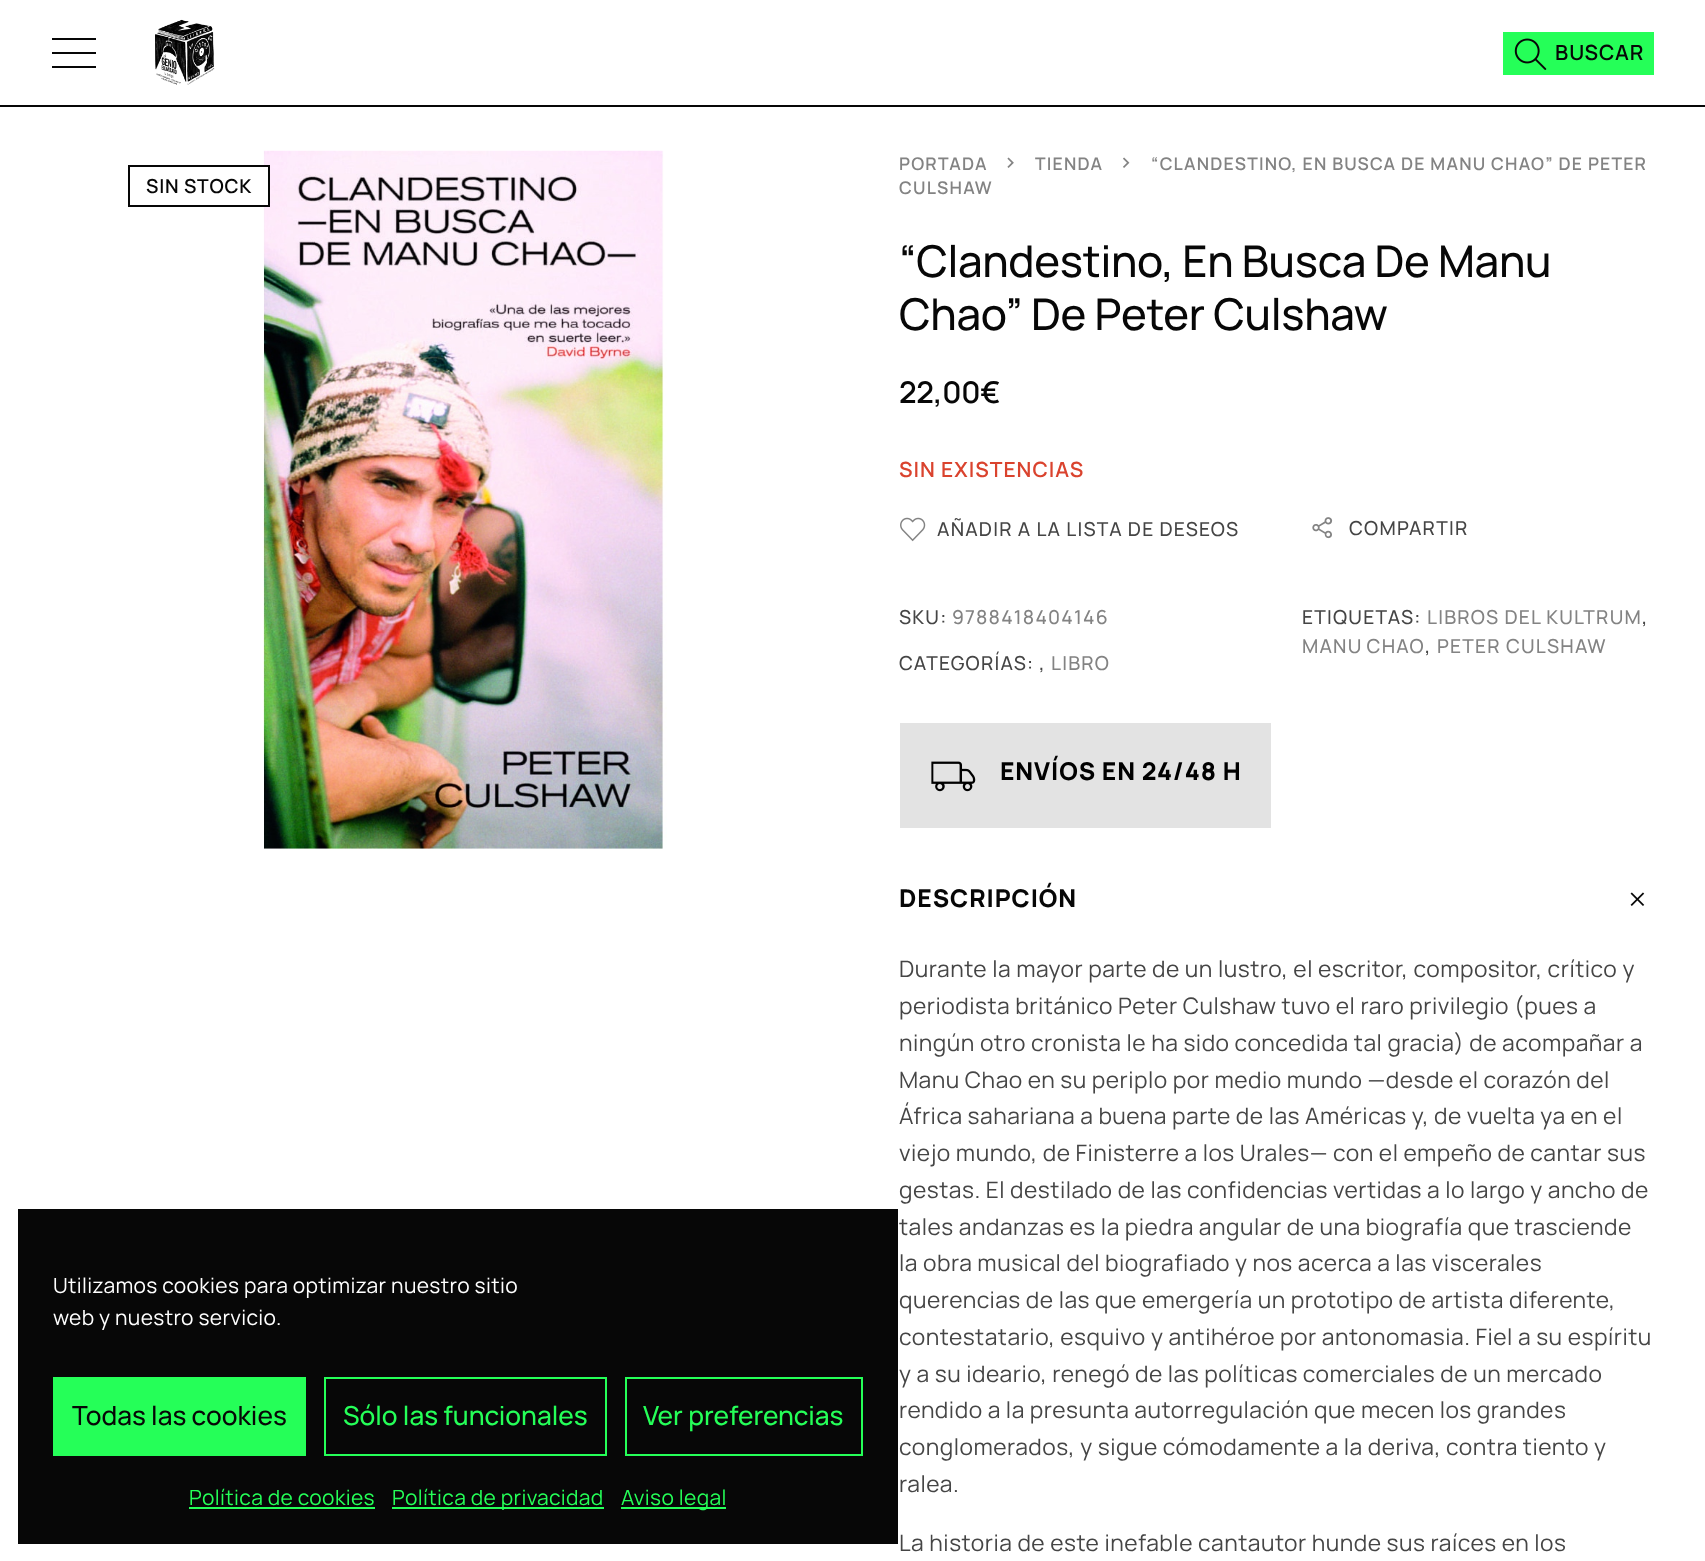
(async () => {
const canvas = document.querySelector("canvas")
canvas.width = 1705
canvas.height = 1561
const c = canvas.getContext("2d")
c.miterLimit = 4
c.fontKerning = "normal"
function T(s,x,y){c.fillText(s,x,y)}
function R(x,y,w,h){c.fillRect(x,y,w,h)}
async function I(src,x,y,w,h){const img=new Image();img.src=src;await img.decode();c.drawImage(img,x,y,w,h)}
let path
c.fillStyle="#fff"
R(0,0,1705,1561)
c.fillStyle="#070707"
R(0,105,1705,2)
path = new Path2D("M96 40h-44v-2h44zm0 14h-44v-2h44zm0 14h-44v-2h44z")
c.fill(path)
await I("1.png",155,19,60,66)
c.fillStyle="#25ff58"
R(1503,32,151,43)
await I("2.png",1514,38,33,32)
c.letterSpacing="1px"
c.font="600 21px Manrope"
c.fillStyle="#070707"
T("BUSCAR",1555,60)
await I("3.png",263,150,404,699)
c.fillStyle="#fff"
R(264,167,4,38)
c.strokeStyle="#070707"
c.lineWidth=2
c.strokeRect(129,166,140,40)
c.letterSpacing="0.75px"
c.font="600 19.25px Manrope"
c.fillStyle="#070707"
T("SIN STOCK",146,193)
c.letterSpacing="1.2px"
c.font="600 17.5px Manrope"
c.fillStyle="#838383"
T("PORTADA",899,170)
await I("4.png",1007,157,7,11)
T("TIENDA",1035,170)
await I("5.png",1123,157,7,11)
T("“CLANDESTINO, EN BUSCA DE MANU CHAO” DE PETER",1151,170)
T("CULSHAW",899,194)
c.letterSpacing="-0.3px"
c.font="500 43.75px Manrope"
c.fillStyle="#070707"
T("“Clandestino, En Busca De Manu",899,277)
T("Chao” De Peter Culshaw",899,330)
c.letterSpacing="-0.25px"
c.font="600 30px Manrope"
T("22,00€",899,403)
c.letterSpacing="1px"
c.font="600 21px Manrope"
c.fillStyle="#da432e"
T("SIN EXISTENCIAS",899,477)
await I("6.png",900,517,26,25)
c.letterSpacing="1.2px"
c.font="500 19.25px Manrope"
c.fillStyle="#454545"
T("AÑADIR A LA LISTA DE DESEOS",937,536)
await I("7.png",1312,517,21,22)
T("COMPARTIR",1349,535)
T("SKU:",899,624)
c.fillStyle="#838383"
T("9788418404146",952,624)
c.fillStyle="#454545"
T("ETIQUETAS:",1302,624)
c.fillStyle="#838383"
T("LIBROS DEL KULTRUM",1427,624)
c.fillStyle="#454545"
T(",",1642,624)
c.wordSpacing="-1px"
c.fillStyle="#838383"
T("MANU CHAO",1302,653)
c.wordSpacing="0px"
c.fillStyle="#454545"
T(",",1425,653)
c.fillStyle="#838383"
T("PETER CULSHAW",1437,653)
c.fillStyle="#454545"
T("CATEGORÍAS: ,",899,670)
c.fillStyle="#838383"
T("LIBRO",1051,670)
c.fillStyle="#e3e3e3"
R(900,723,371,105)
await I("8.png",931,761,45,31)
c.letterSpacing="0.9px"
c.font="800 24.5px Manrope"
c.fillStyle="#000"
T("ENVÍOS EN 24/48 H",1000,780)
c.fillStyle="#070707"
T("DESCRIPCIÓN",899,907)
await I("9.png",1630,892,15,14)
c.letterSpacing="0.5px"
c.font="22.75px Manrope"
c.fillStyle="#454545"
T("Durante la mayor parte de un lustro, el escritor, compositor, crítico y",899,977)
T("periodista británico Peter Culshaw tuvo el raro privilegio (pues a",899,1014)
T("ningún otro cronista le ha sido concedida tal gracia) de acompañar a",899,1051)
T("Manu Chao en su periplo por medio mundo —desde el corazón del",899,1088)
T("África sahariana a buena parte de las Américas y, de vuelta ya en el",899,1124)
T("viejo mundo, de Finisterre a los Urales— con el empeño de cantar sus",899,1161)
T("gestas. El destilado de las confidencias vertidas a lo largo y ancho de",899,1198)
T("tales andanzas es la piedra angular de una biografía que trasciende",899,1235)
T("la obra musical del biografiado y nos acerca a las viscerales",899,1271)
T("querencias de las que emergería un prototipo de artista diferente,",899,1308)
T("contestatario, esquivo y antihéroe por antonomasia. Fiel a su espíritu",899,1345)
T("y a su ideario, renegó de las políticas comerciales de un mercado",899,1382)
T("rendido a la presunta autorregulación que mecen los grandes",899,1418)
T("conglomerados, y sigue cómodamente a la deriva, contra tiento y",899,1455)
T("ralea.",899,1492)
T("La historia de este inefable cantautor hunde sus raíces en los",899,1551)
c.fillStyle="#070707"
R(18,1209,880,335)
c.letterSpacing="0.35px"
c.font="21px Manrope"
c.fillStyle="#fff"
T("Utilizamos cookies para optimizar nuestro sitio",53,1293)
T("web y nuestro servicio.",53,1325)
c.fillStyle="#25ff58"
R(53,1377,253,79)
c.letterSpacing="0px"
c.font="500 26.25px Manrope"
c.fillStyle="#070707"
T("Todas las cookies",72,1425)
c.strokeStyle="#25ff58"
c.strokeRect(325,1378,281,77)
c.fillStyle="#25ff58"
T("Sólo las funcionales",343,1425)
c.strokeRect(626,1378,236,77)
T("Ver preferencias",643,1425)
c.letterSpacing="0.35px"
c.font="21px Manrope"
T("Política de cookies",189,1505)
R(189,1507,186,2)
R(392,1507,212,2)
T("Política de privacidad",392,1505)
R(621,1507,105,2)
T("Aviso legal",621,1505)
})()
